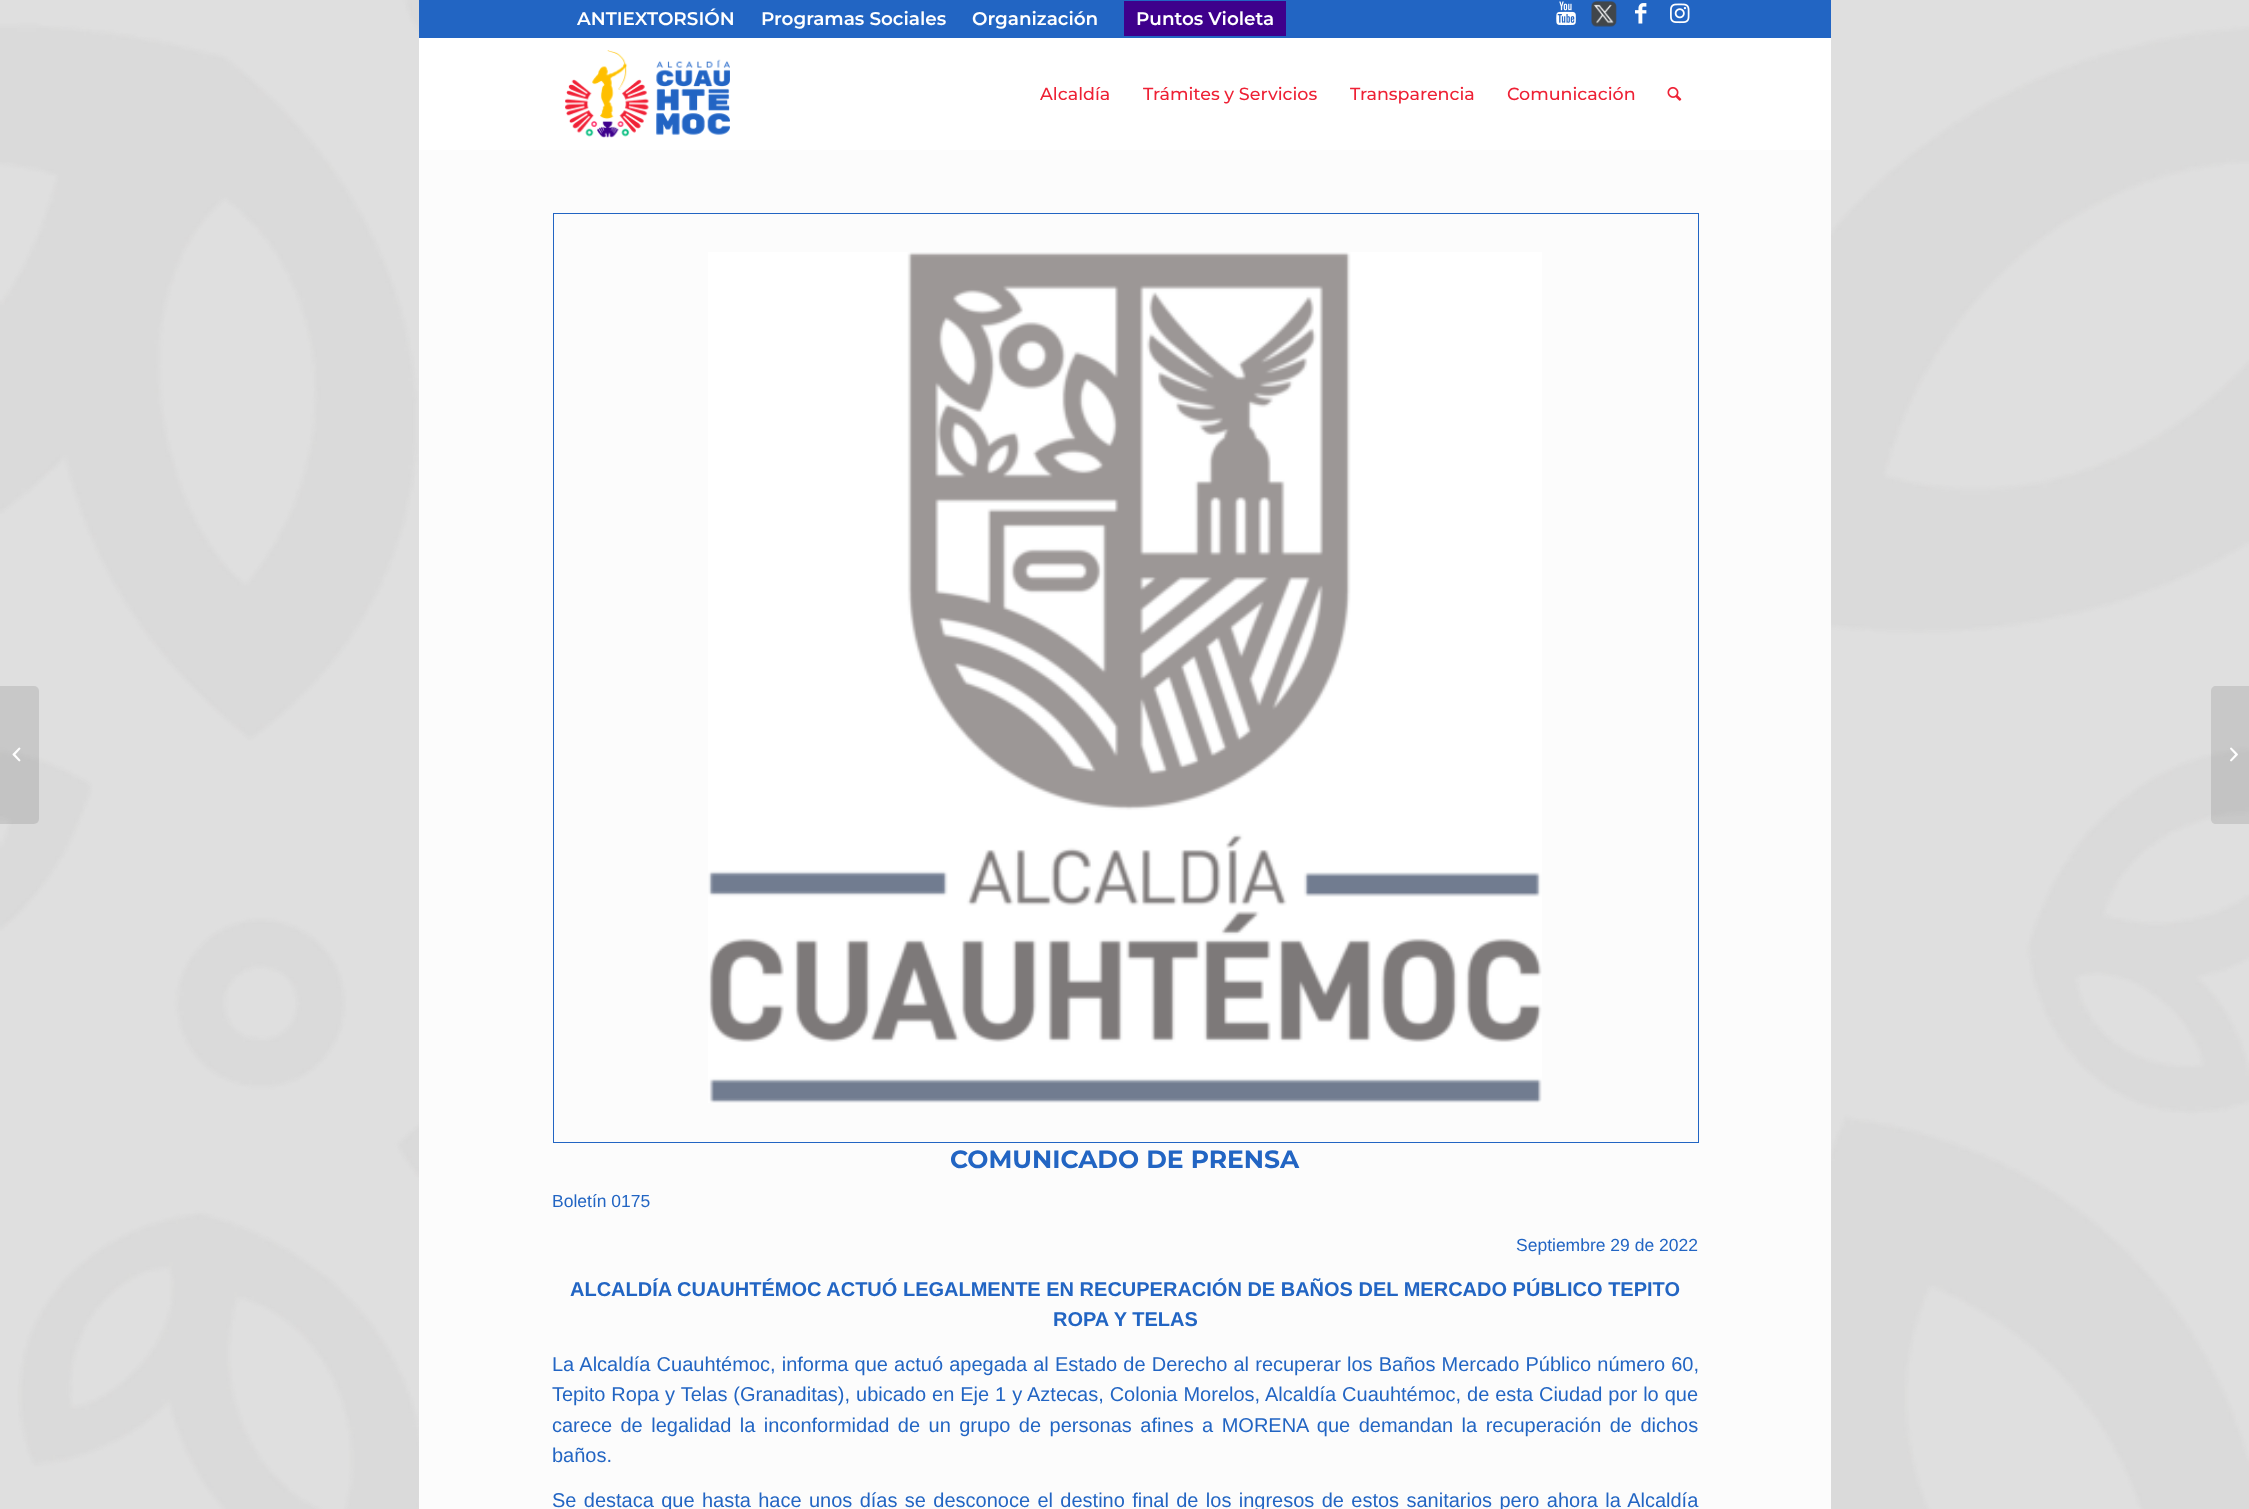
(async () => {
const canvas = document.querySelector("canvas")
canvas.width = 2249
canvas.height = 1509
const c = canvas.getContext("2d")
c.miterLimit = 4
c.fontKerning = "normal"
function T(s,x,y){c.fillText(s,x,y)}
function R(x,y,w,h){c.fillRect(x,y,w,h)}
async function I(src,x,y,w,h){const img=new Image();img.src=src;await img.decode();c.drawImage(img,x,y,w,h)}
let path
c.fillStyle="#dfdfdf"
R(0,0,2249,1509)
await I("1.png",0,0,2249,1509)
c.fillStyle="#2265c3"
R(419,0,1412,38)
c.font="600 18.4px Montserrat"
c.fillStyle="#fff"
T("ANTIEXTORSIÓN",577,25)
T("Programas Sociales",761,25)
T("Organización",972,25)
c.fillStyle="#3e008c"
R(1124,1,162,35)
c.fillStyle="#fff"
T("Puntos Violeta",1136,25)
await I("2.png",1556,1,20,25)
await I("3.png",1591,1,26,26)
await I("4.png",1635,3,12,21)
await I("5.png",1670,3,20,21)
R(419,38,1412,112)
await I("6.png",565,50,165,88)
c.font="500 17.5px Montserrat"
c.fillStyle="#ee2135"
T("Alcaldía",1040,100)
T("Trámites y Servicios",1143,100)
T("Transparencia",1350,100)
T("Comunicación",1507,100)
await I("7.png",1667,86,15,15)
c.fillStyle="#0000001a"
c.beginPath()
c.roundRect(0,686,39,138,[0,5,5,0])
c.fill()
await I("8.png",12,747,9,15)
path = new Path2D("M2216 686h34v138h-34c-3 0-5-2-5-5v-128c0-3 2-5 5-5z")
c.fill(path)
await I("9.png",2230,747,8,15)
c.fillStyle="#fcfcfc"
R(419,150,1412,1359)
c.strokeStyle="#2265c3"
c.strokeRect(553.5,213.5,1145,929)
await I("10.png",708,252,834,851)
c.font="bold 25px Montserrat"
c.fillStyle="#2265c3"
T("COMUNICADO DE PRENSA",950,1168)
c.font="17.5px Liberation Sans"
T("Boletín 0175",552,1207)
T("Septiembre 29 de 2022",1516,1251)
c.font="bold 20px Liberation Sans"
T("ALCALDÍA CUAUHTÉMOC ACTUÓ LEGALMENTE EN RECUPERACIÓN DE BAÑOS DEL MERCADO PÚBLICO TEPITO",570,1296)
T("ROPA Y TELAS",1053,1326)
c.wordSpacing="0.6px"
c.font="20px Liberation Sans"
T("La Alcaldía Cuauhtémoc, informa que actuó apegada al Estado de Derecho al recuperar los Baños Mercado Público número 60,",552,1371)
c.wordSpacing="0.4px"
T("Tepito Ropa y Telas (Granaditas), ubicado en Eje 1 y Aztecas, Colonia Morelos, Alcaldía Cuauhtémoc, de esta Ciudad por lo que",552,1401)
c.wordSpacing="2.9px"
T("carece de legalidad la inconformidad de un grupo de personas afines a MORENA que demandan la recuperación de dichos",552,1432)
c.wordSpacing="0px"
T("baños.",552,1462)
c.wordSpacing="1.8px"
T("Se destaca que hasta hace unos días se desconoce el destino final de los ingresos de estos sanitarios pero ahora la Alcaldía",552,1507)
})()
